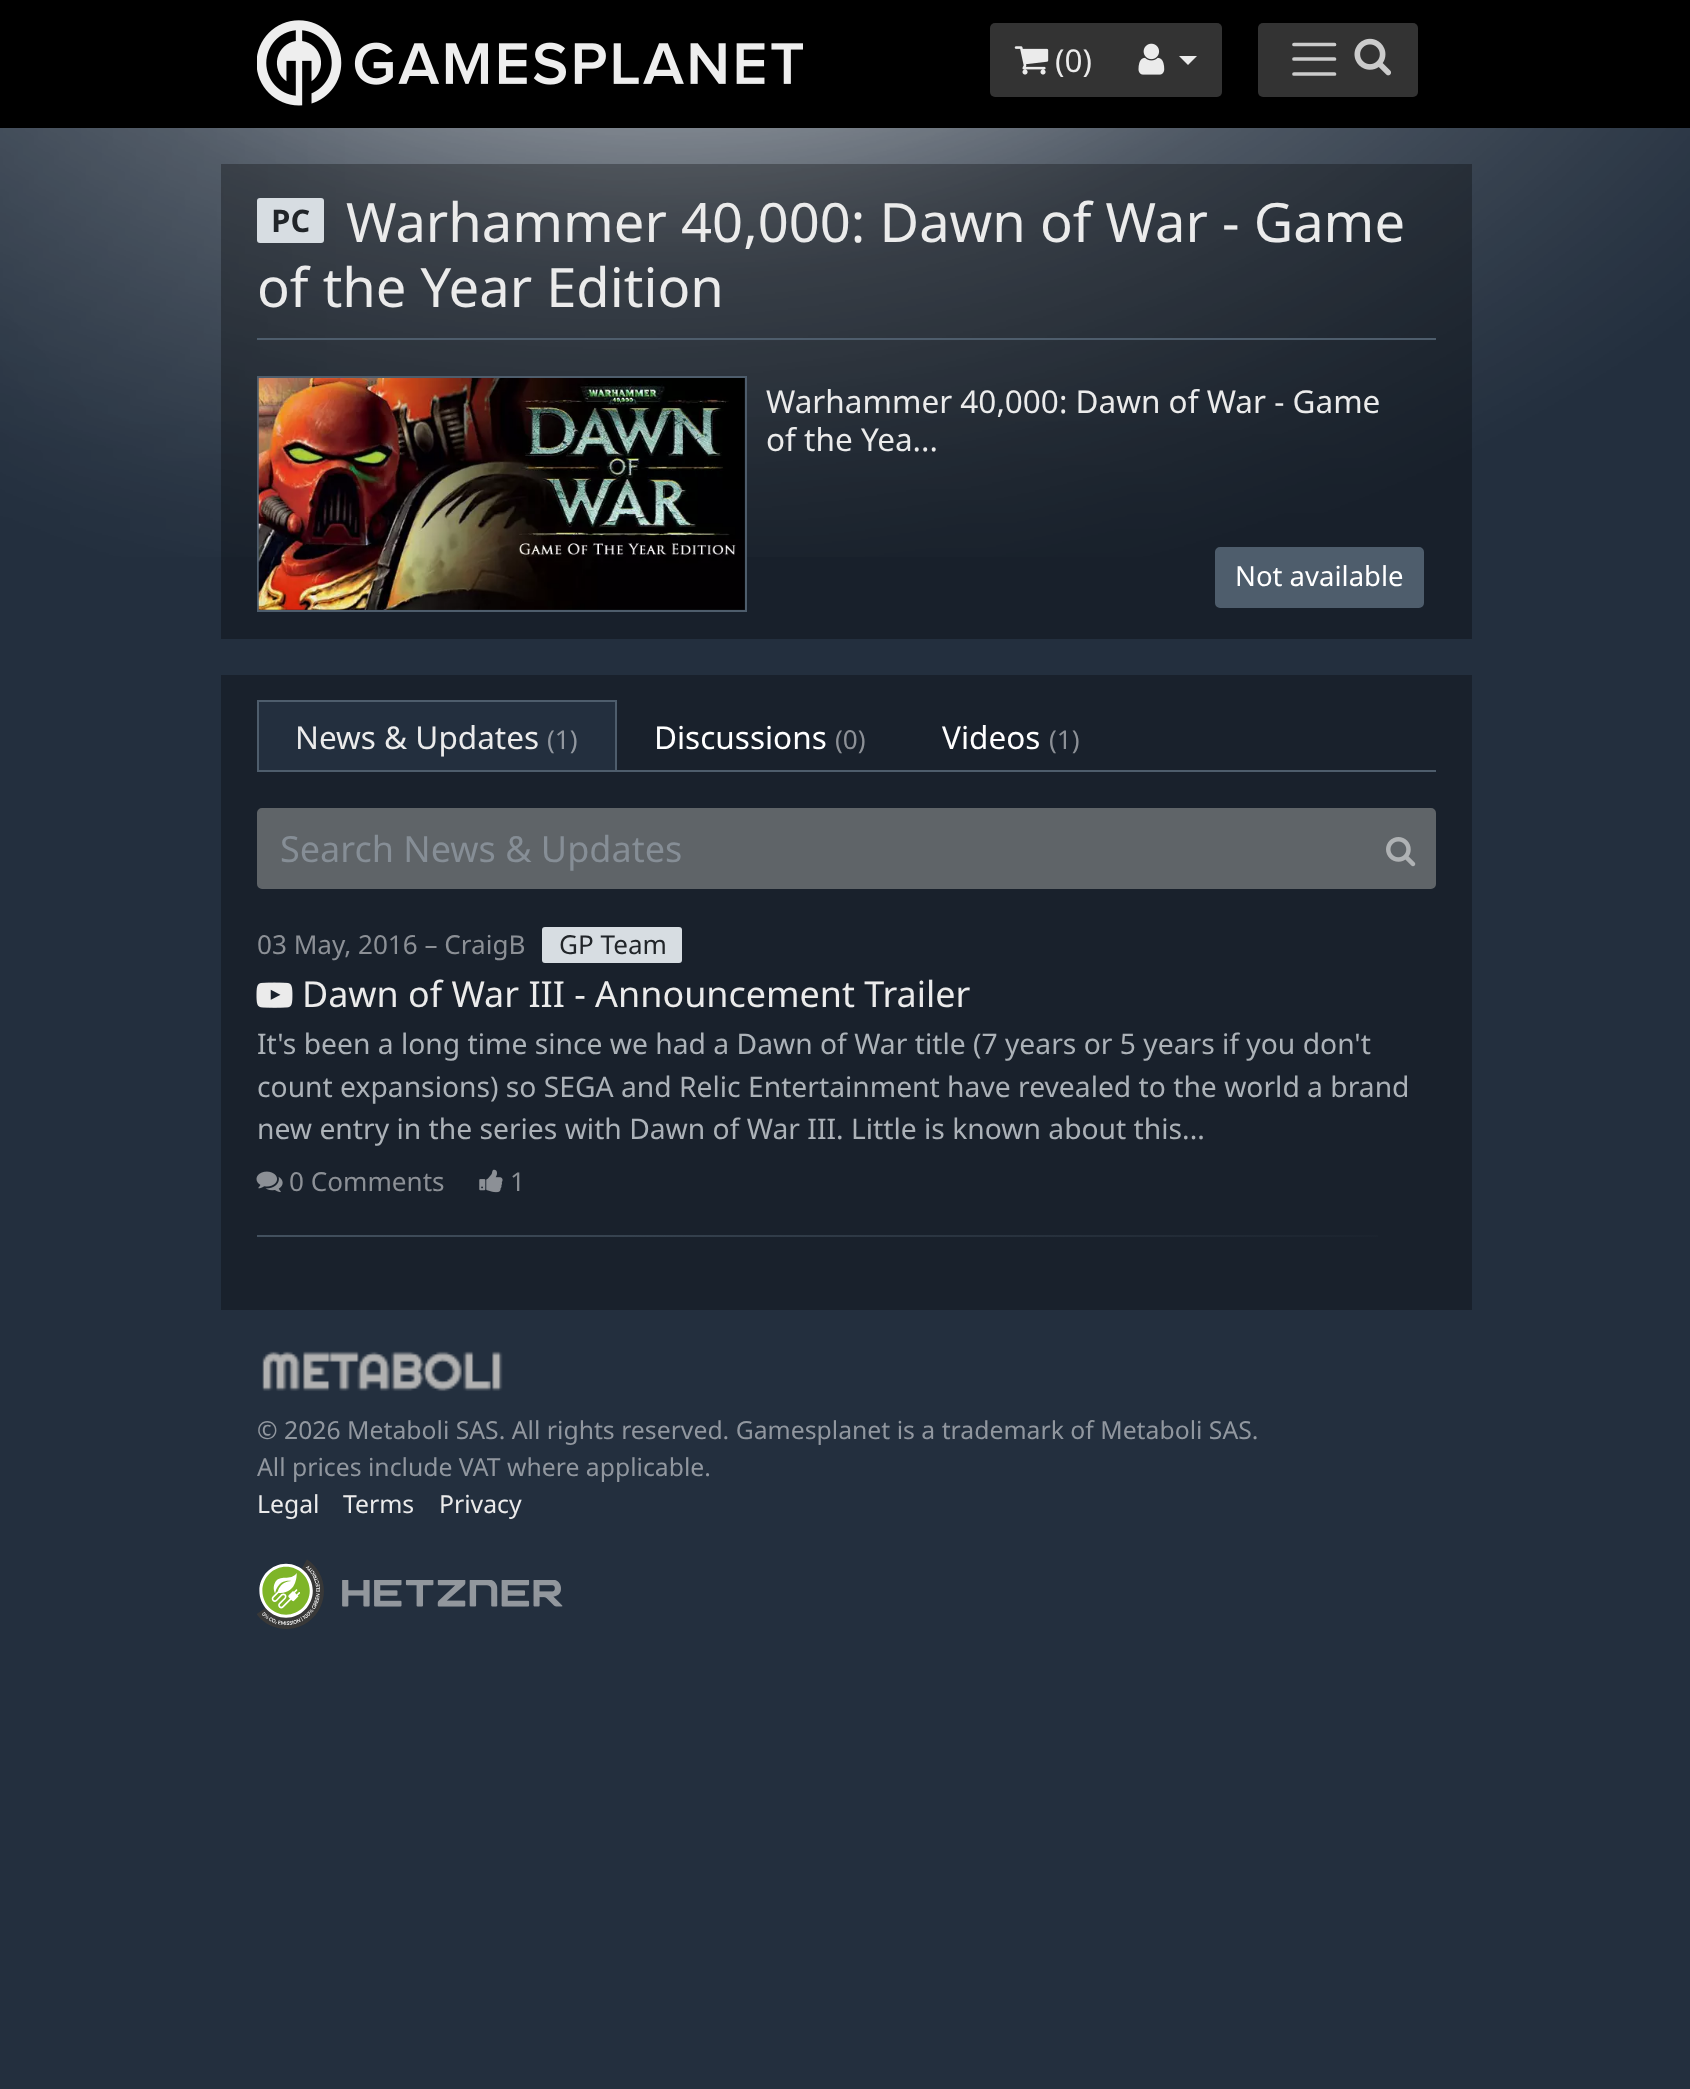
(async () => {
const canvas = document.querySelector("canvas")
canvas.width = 1690
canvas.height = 2089
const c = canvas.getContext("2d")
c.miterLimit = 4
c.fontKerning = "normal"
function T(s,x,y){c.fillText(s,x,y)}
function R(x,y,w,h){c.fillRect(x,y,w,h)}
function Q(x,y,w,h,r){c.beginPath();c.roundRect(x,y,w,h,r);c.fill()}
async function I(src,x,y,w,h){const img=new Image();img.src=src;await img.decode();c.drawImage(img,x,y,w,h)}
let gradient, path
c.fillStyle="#232f3e"
R(0,0,1690,2089)
await I("1.png",0,128,1690,429)
c.fillStyle="#000"
R(0,0,1690,128)
await I("2.png",257,20,546,86)
c.fillStyle="#333"
c.beginPath()
c.roundRect(990,23,126,74,[5,0,0,5])
c.fill()
await I("3.png",1014,46,35,29)
c.font="31.5px Noto Sans"
c.fillStyle="#ebebeb"
T("(0)",1055,72)
c.fillStyle="#333"
c.beginPath()
c.roundRect(1114,23,108,74,[0,5,5,0])
c.fill()
await I("4.png",1138,43,27,32)
c.fillStyle="#ebebeb"
path = new Path2D("M1179 56h18l-9 9z")
c.fill(path)
c.fillStyle="#333"
Q(1258,23,160,74,5)
path = new Path2D("M1294 44.5h40.5m-40.5 14.5h40.5m-40.5 15h40.5")
c.strokeStyle="#ccc"
c.lineWidth=3.7
c.lineCap="round"
c.stroke(path)
await I("5.png",1354,38,37,38)
c.fillStyle="#0000004d"
R(221,164,1251,475)
c.fillStyle="#4e5d6c"
R(257,338,1179,2)
c.font="54.3px Noto Sans"
c.fillStyle="#ebebeb"
T("Warhammer 40,000: Dawn of War - Game",346,242)
T("of the Year Edition",257,307)
c.fillStyle="#d7dde2"
Q(257,198,67,45,3)
c.font="bold 31px Noto Sans"
c.fillStyle="#212529"
T("PC",271,232)
c.strokeStyle="#4e5d6c"
c.lineWidth=2
c.strokeRect(258,377,488,234)
await I("6.png",258,378,487,232)
c.font="31.5px Noto Sans"
c.fillStyle="#ebebeb"
T("Warhammer 40,000: Dawn of War - Game",766,413)
T("of the Yea...",766,451)
c.fillStyle="#4e5d6c"
c.beginPath()
c.roundRect(1216,548,207,59,4)
c.fill()
c.stroke()
c.font="27.5px Noto Sans"
c.fillStyle="#fff"
T("Not available",1235,586)
c.fillStyle="#19212c"
R(221,675,1251,635)
c.fillStyle="#4e5d6c"
R(257,770,1179,2)
c.fillStyle="#232f3e"
R(259,702,356,68)
c.save()
c.beginPath()
c.rect(257,700,1179,70)
c.clip()
c.strokeRect(258,701,358,70)
c.restore()
c.font="31.5px Noto Sans"
c.fillStyle="#ebebeb"
T("News & Updates",295,749)
c.font="26.1px Noto Sans"
c.fillStyle="#91979f"
T("(1)",547,749)
c.font="31.5px Noto Sans"
c.fillStyle="#fff"
T("Discussions",654,749)
c.font="26.1px Noto Sans"
c.fillStyle="#8c9096"
T("(0)",835,749)
c.font="31.5px Noto Sans"
c.fillStyle="#fff"
T("Videos",942,749)
c.font="26.1px Noto Sans"
c.fillStyle="#8c9096"
T("(1)",1049,749)
c.fillStyle="#5f6468"
c.beginPath()
c.roundRect(258,809,1109,79,[4,0,0,4])
c.fill()
c.strokeStyle="#5f6468"
c.stroke()
c.font="36px Noto Sans"
c.fillStyle="#868e96"
T("Search News & Updates",280,862)
c.fillStyle="#5f6468"
c.beginPath()
c.roundRect(1367,809,68,79,[0,4,4,0])
c.fill()
c.stroke()
await I("7.png",1386,837,30,30)
c.font="26.1px Noto Sans"
c.fillStyle="#8c9096"
T("03 May, 2016 – CraigB",257,954)
c.fillStyle="#d7dde2"
Q(542,927,140,36,3)
c.fillStyle="#212529"
T("GP Team",559,954)
await I("8.png",256,982,37,26)
c.font="35.9px Noto Sans"
c.fillStyle="#ebebeb"
T("Dawn of War III - Announcement Trailer",302,1007)
c.font="28.25px Noto Sans"
c.fillStyle="#acb2b8"
T("It's been a long time since we had a Dawn of War title (7 years or 5 years if you don't",257,1054)
T("count expansions) so SEGA and Relic Entertainment have revealed to the world a brand",257,1097)
T("new entry in the series with Dawn of War III. Little is known about this...",257,1139)
await I("9.png",256,1171,27,22)
c.font="26.1px Noto Sans"
c.fillStyle="#8c9096"
T("0 Comments",289,1191)
await I("10.png",479,1169,24,24)
T("1",510,1191)
gradient = c.createLinearGradient(257,1236,1436,1236)
gradient.addColorStop(0,"#43515f")
gradient.addColorStop(1,"#19212c")
c.fillStyle = gradient
R(257,1235,1121,2)
await I("11.png",262,1351,241,41)
c.font="24.75px Noto Sans"
c.fillStyle="#91979f"
T("© 2026 Metaboli SAS. All rights reserved. Gamesplanet is a trademark of Metaboli SAS.",257,1439)
T("All prices include VAT where applicable.",257,1476)
c.fillStyle="#ebebeb"
T("Legal",257,1513)
T("Terms",343,1513)
T("Privacy",439,1513)
await I("12.png",257,1559,67,70)
await I("13.png",342,1580,221,27)
})()
